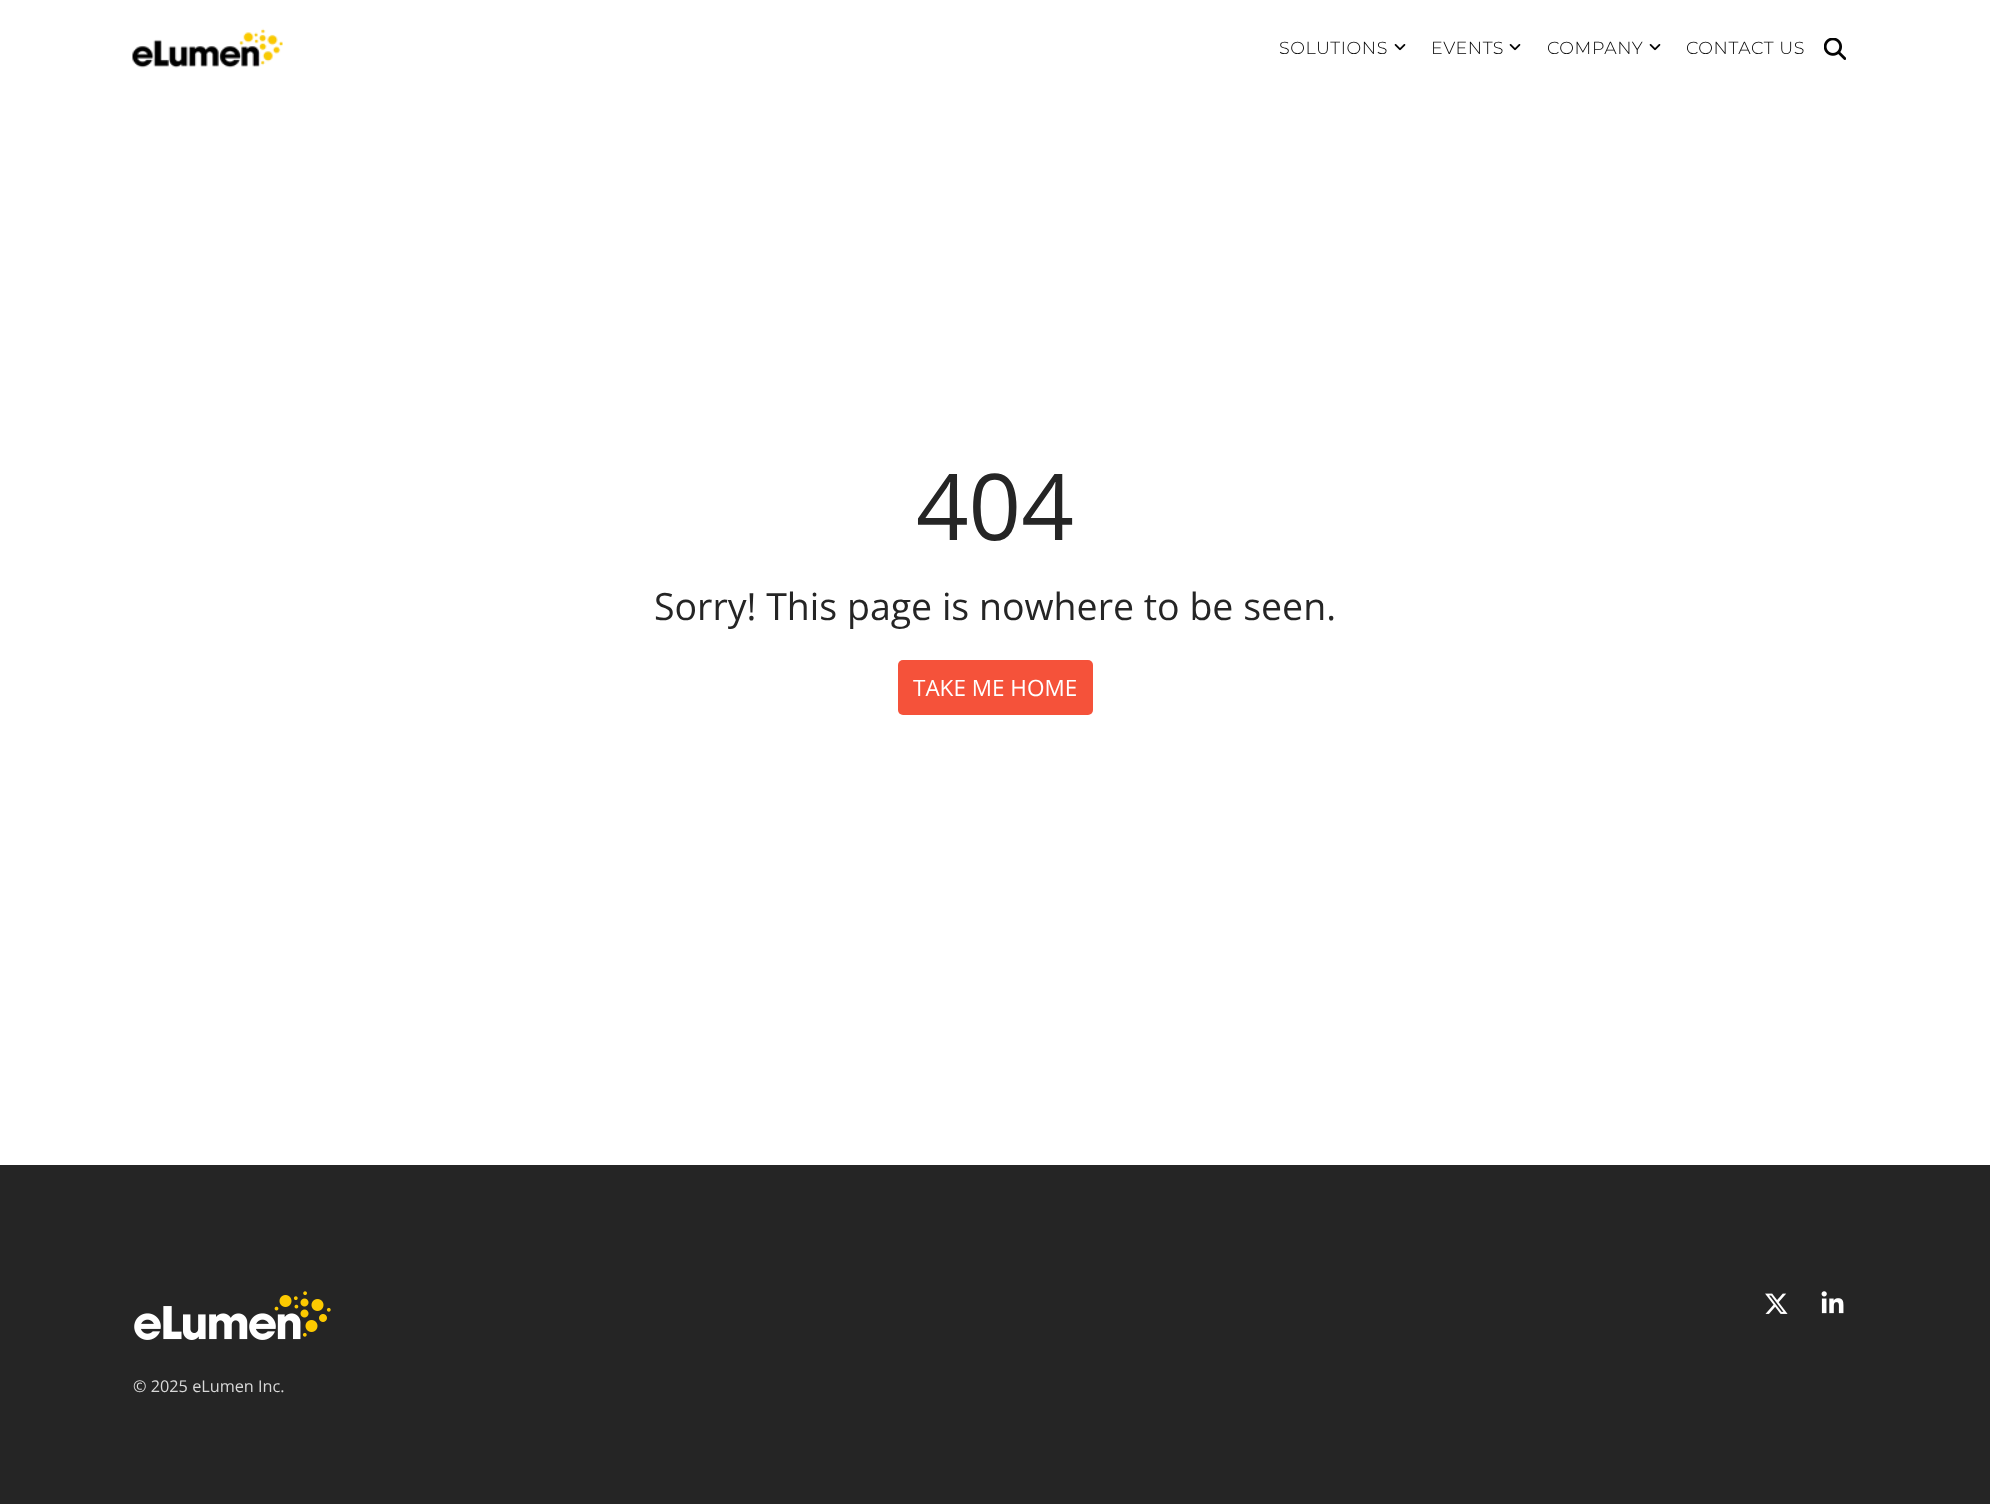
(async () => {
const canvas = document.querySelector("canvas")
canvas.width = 1990
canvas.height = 1504
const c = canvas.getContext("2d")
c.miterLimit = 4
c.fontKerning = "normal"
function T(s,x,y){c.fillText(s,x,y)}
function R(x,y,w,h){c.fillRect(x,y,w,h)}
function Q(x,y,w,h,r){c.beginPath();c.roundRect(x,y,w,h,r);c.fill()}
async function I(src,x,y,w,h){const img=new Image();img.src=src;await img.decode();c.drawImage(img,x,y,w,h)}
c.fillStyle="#fff"
R(0,0,1990,1504)
await I("1.png",132,28,151,40)
c.letterSpacing="0.6px"
c.font="300 17.5px Montserrat"
c.fillStyle="#040404"
T("SOLUTIONS",1279,54)
await I("2.png",1394,44,12,7)
T("EVENTS",1431,54)
await I("2.png",1509,44,12,7)
T("COMPANY",1547,54)
await I("2.png",1649,44,12,7)
T("CONTACT US",1686,54)
await I("3.png",1824,38,22,22)
c.letterSpacing="0px"
c.font="92px Open Sans"
c.fillStyle="#252525"
T("404",916,540)
c.font="37.5px Open Sans"
T("Sorry! This page is nowhere to be seen.",654,620)
c.fillStyle="#f5523a"
Q(898,660,195,55,5)
c.font="22.5px Open Sans"
c.fillStyle="#fff"
T("TAKE ME HOME",913,696)
c.fillStyle="#252525"
R(0,1165,1990,339)
await I("4.png",1765,1293,23,21)
await I("5.png",1821,1291,23,23)
await I("6.png",134,1291,197,49)
c.font="16.25px Open Sans"
c.fillStyle="#d8d8d8"
T("© 2025 eLumen Inc.",133,1392)
})()
